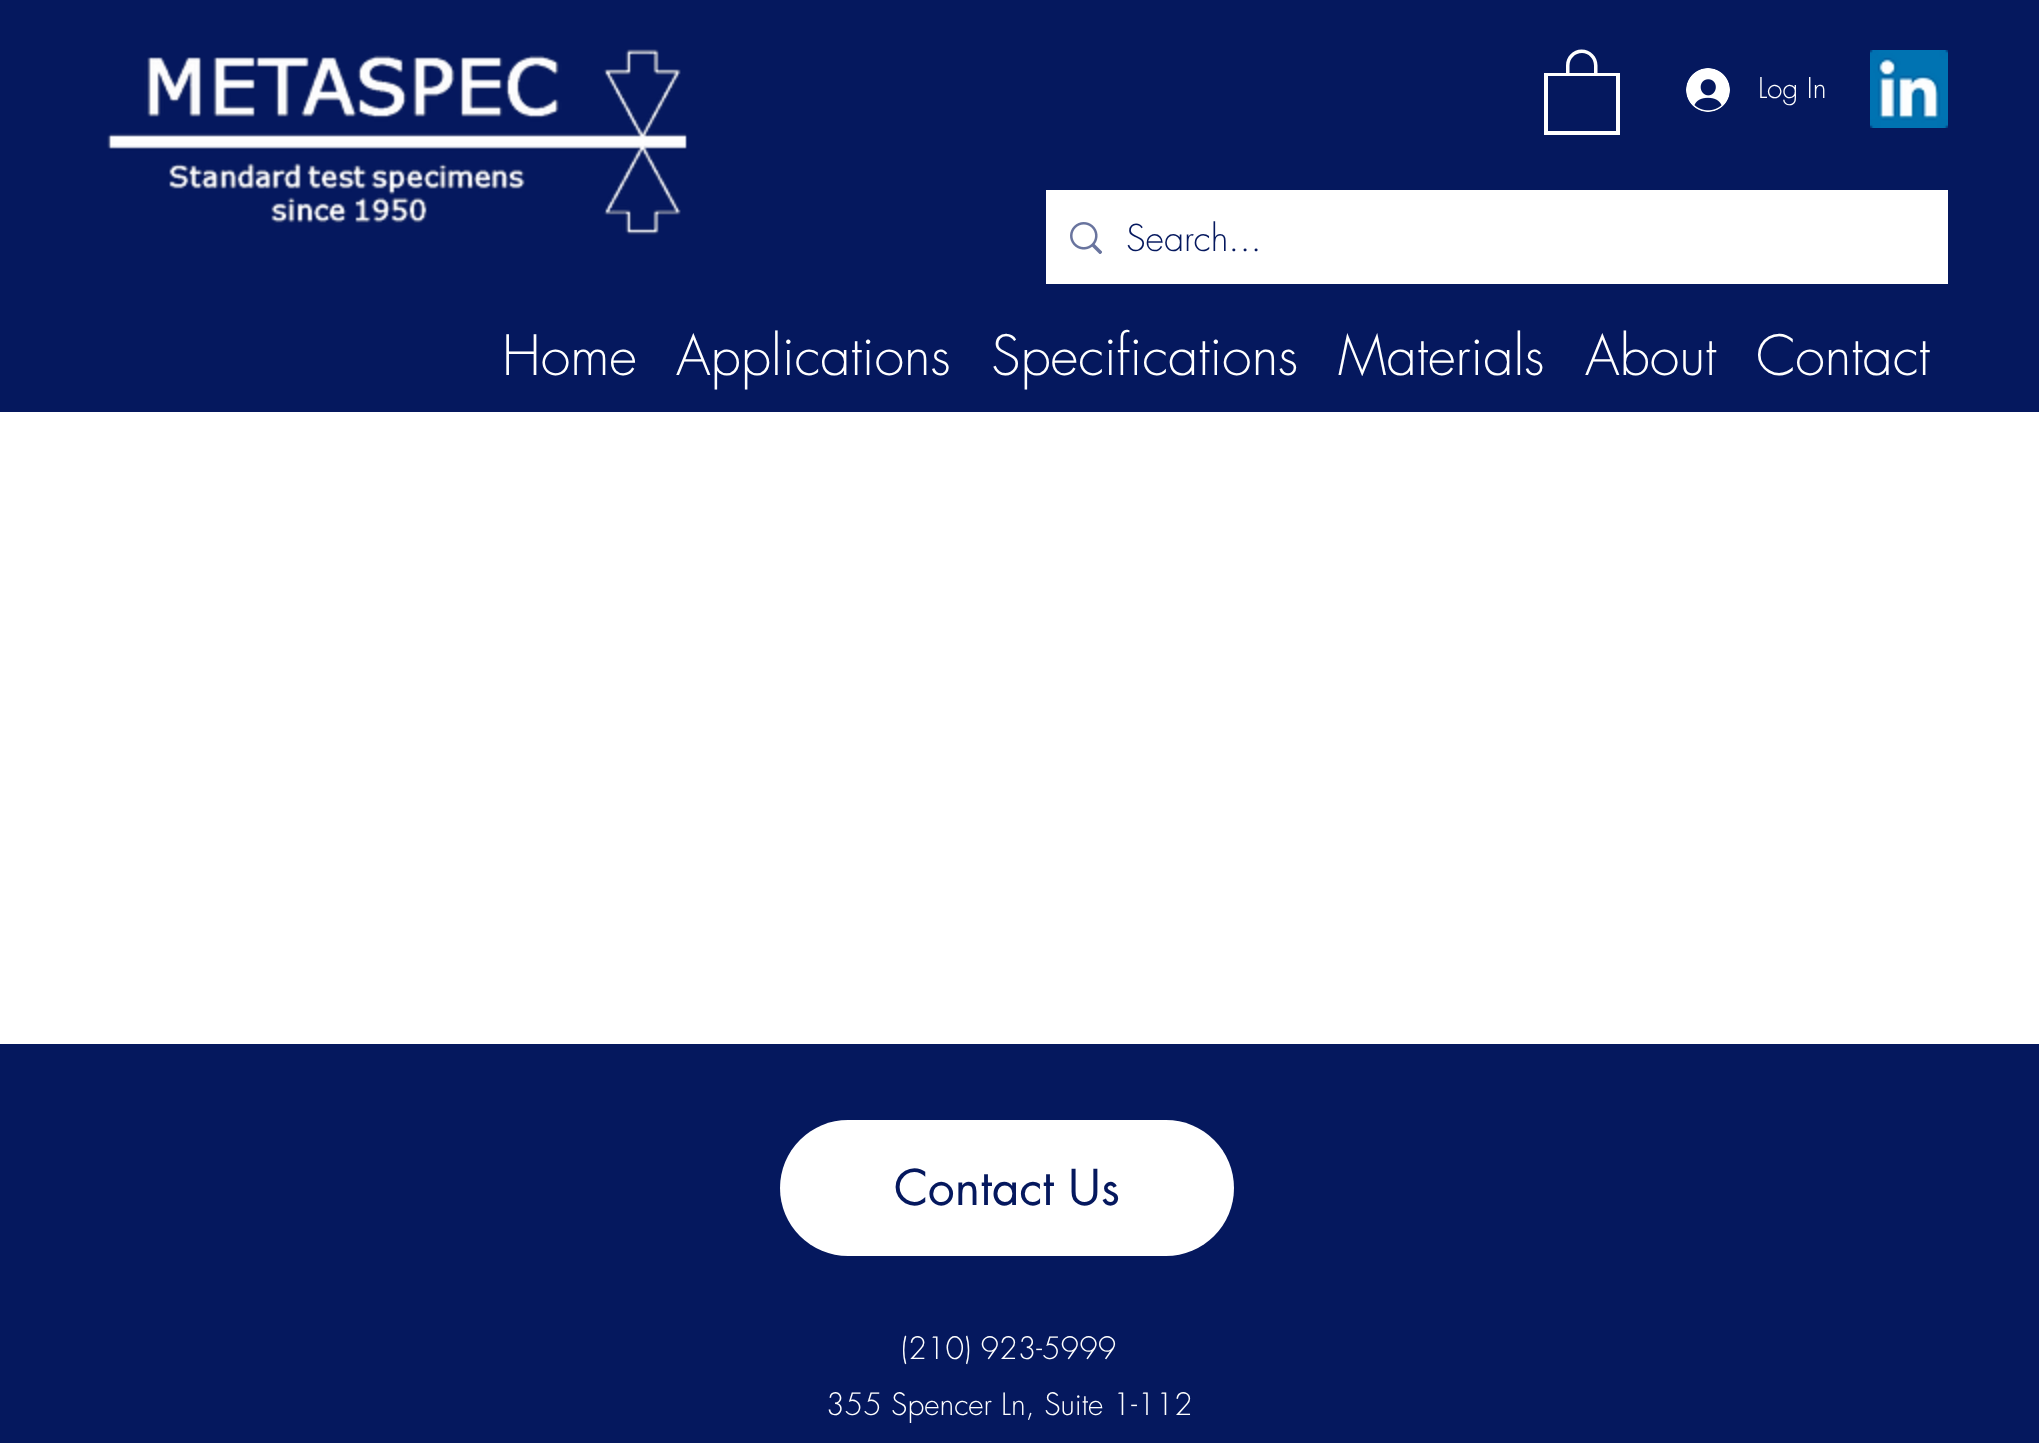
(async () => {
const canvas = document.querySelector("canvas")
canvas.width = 2039
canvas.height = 1443
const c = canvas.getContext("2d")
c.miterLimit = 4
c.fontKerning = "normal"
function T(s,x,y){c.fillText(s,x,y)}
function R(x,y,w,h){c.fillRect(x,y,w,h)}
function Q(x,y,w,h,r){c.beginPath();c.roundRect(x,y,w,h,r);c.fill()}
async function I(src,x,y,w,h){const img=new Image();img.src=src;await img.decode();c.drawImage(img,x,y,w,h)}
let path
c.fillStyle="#fff"
R(0,0,2039,1443)
c.fillStyle="#05185e"
R(0,0,2039,412)
await I("1.png",107,49,580,186)
c.fillStyle="#fff"
path = new Path2D("M1581.5 49.5c-8.5 0-15.5 7-15.5 16v8.5h3.5v-8.5c0-7 5.5-12.5 12.5-12.5c6.5 0 12 5.5 12 12.5v8.5h3v-.5h.5v-8c0-9-7-16-16-16z")
c.fill(path)
path = new Path2D("M1616 76v55h-68v-55h68m4-3h-76v62h76z")
c.fill(path)
await I("2.png",1686,68,44,44)
c.font="300 28px futura"
T("Log In",1758,98)
await I("3.png",1870,50,78,78)
R(1046,190,902,94)
await I("4.png",1070,222,32,32)
c.font="300 36px futura"
c.fillStyle="#05185e"
T("Search...",1126,251)
c.font="300 54px futura"
c.fillStyle="#fff"
T("Home",502,375)
T("Applications",676,375)
T("Specifications",991,375)
T("Materials",1338,375)
T("About",1585,375)
T("Contact",1756,375)
c.fillStyle="#05185e"
R(0,1044,2039,399)
c.fillStyle="#fff"
Q(780,1120,454,136,68)
c.font="48px futura"
c.fillStyle="#05185e"
T("Contact Us",894,1205)
c.font="300 30px futura"
c.fillStyle="#fff"
T("(210) 923-5999",901,1359)
T("355 Spencer Ln, Suite 1-112",826,1415)
})()
